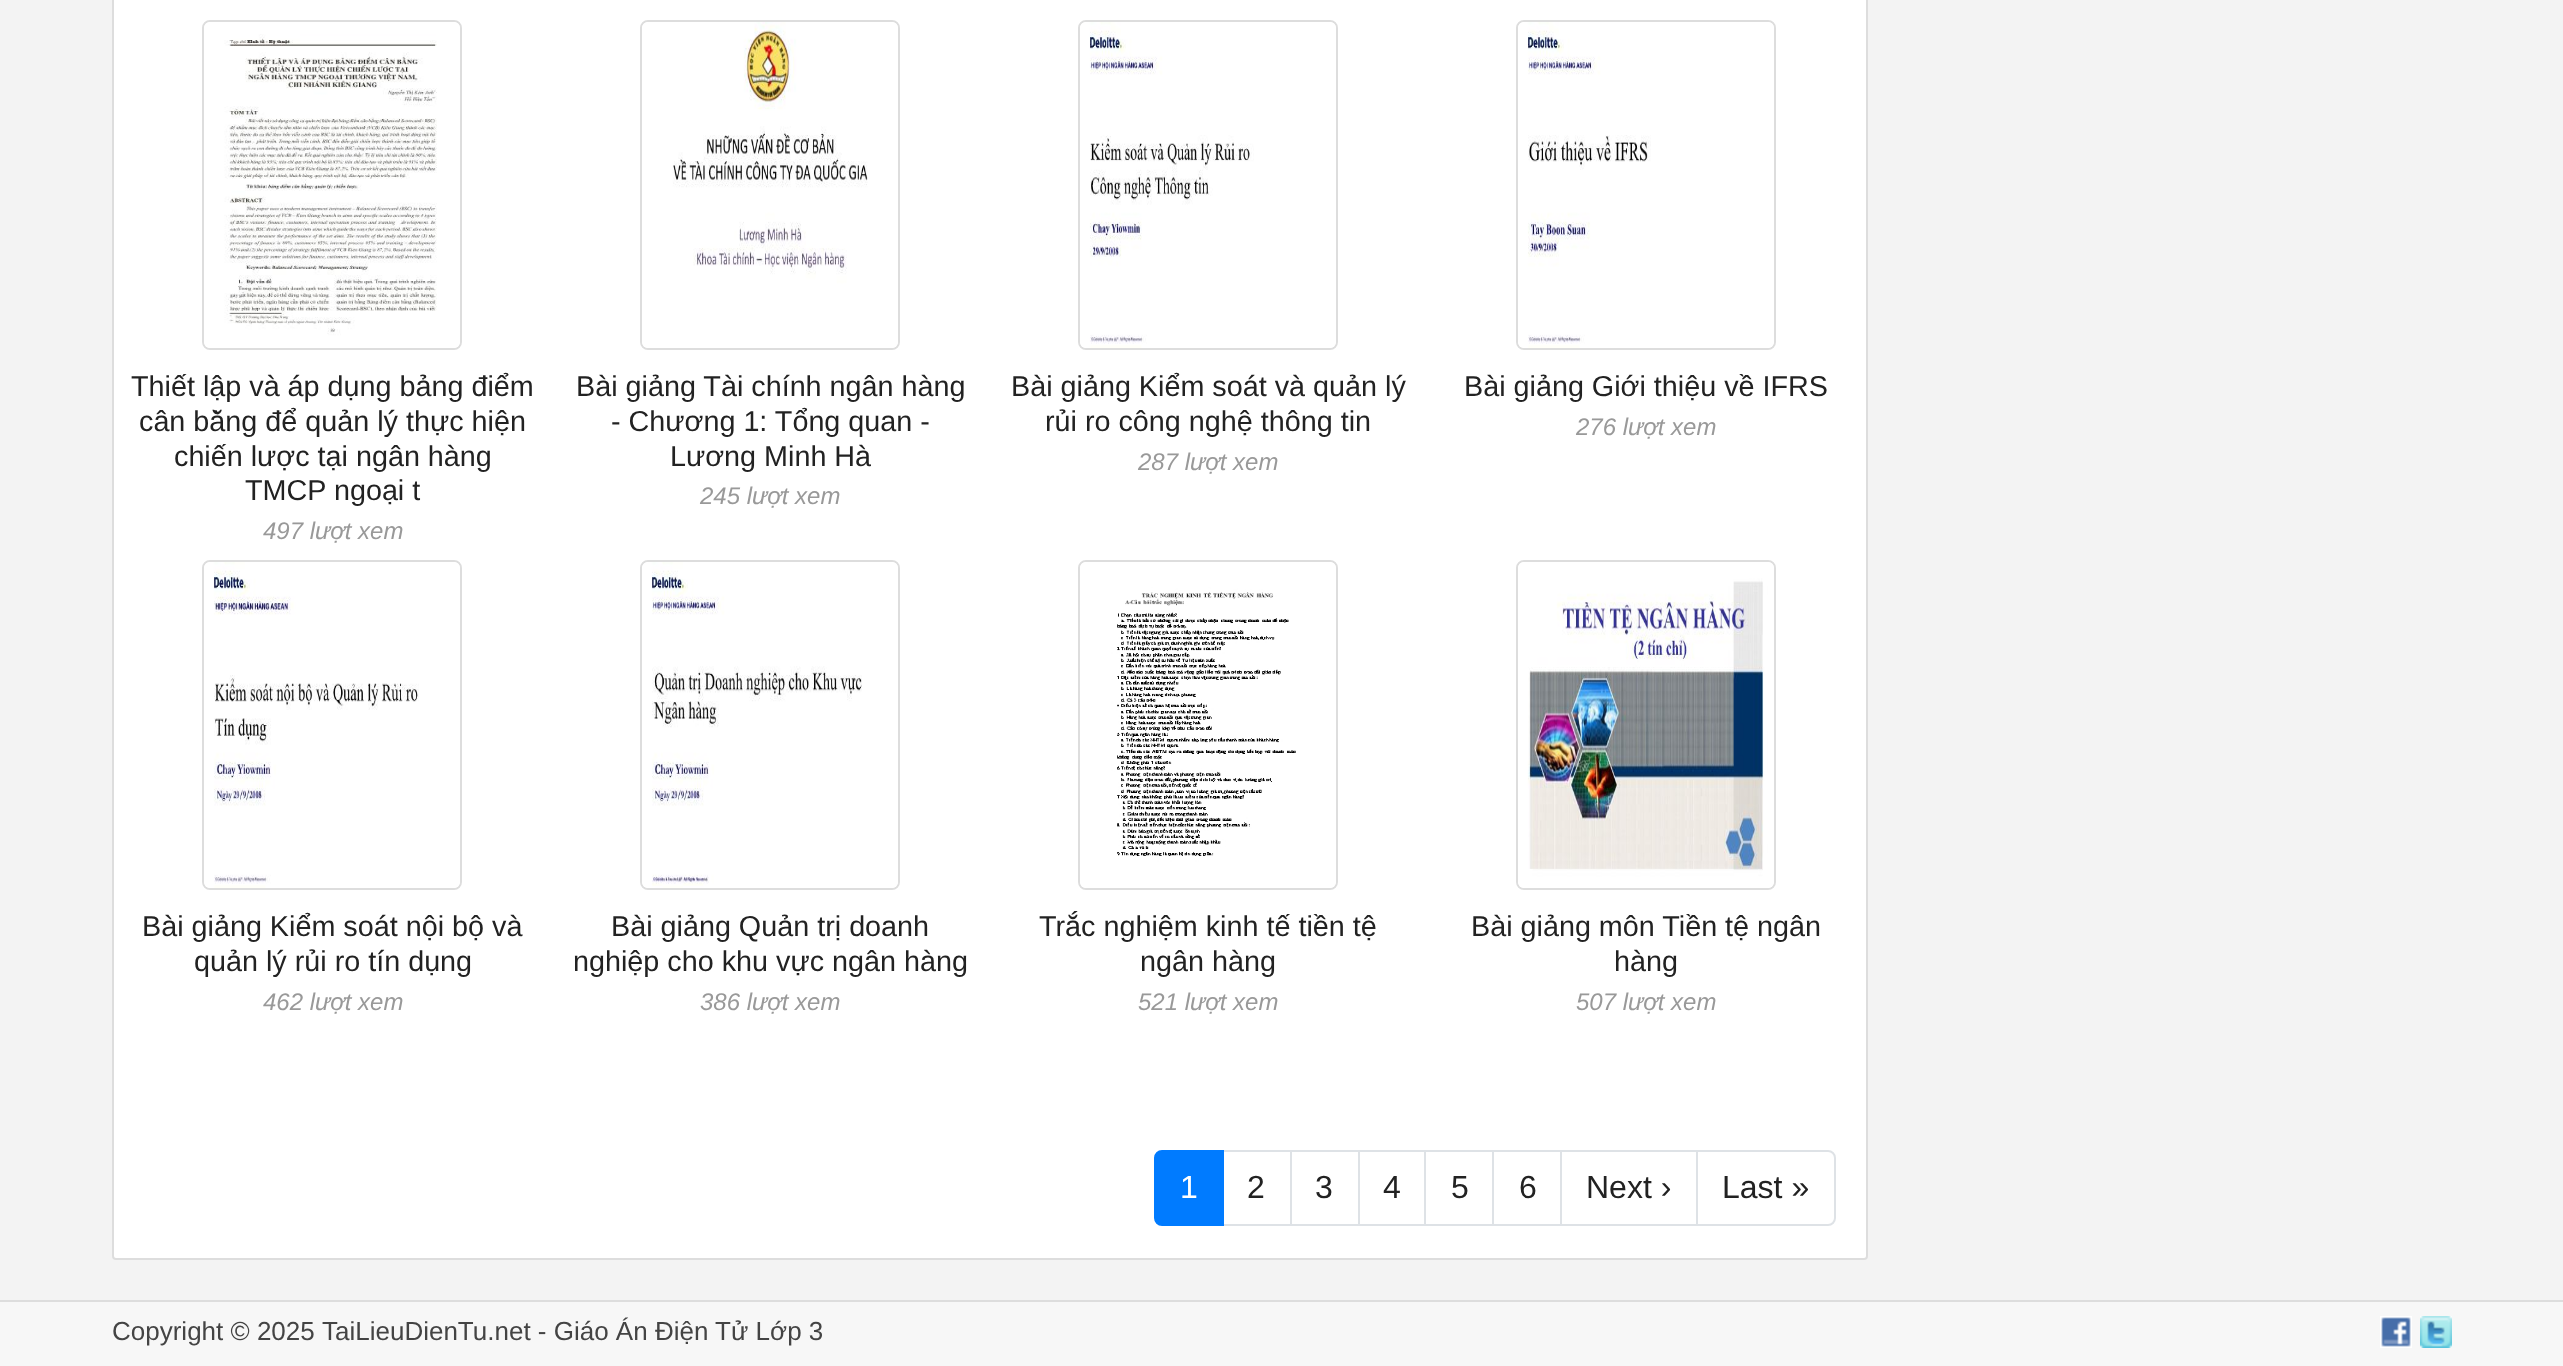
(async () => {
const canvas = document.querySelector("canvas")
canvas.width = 2563
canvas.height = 1366
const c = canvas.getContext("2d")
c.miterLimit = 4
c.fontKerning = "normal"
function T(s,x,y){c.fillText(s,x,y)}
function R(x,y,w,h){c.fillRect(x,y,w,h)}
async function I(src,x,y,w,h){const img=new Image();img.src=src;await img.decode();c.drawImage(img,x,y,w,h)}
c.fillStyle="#f3f3f3"
R(0,0,2563,1366)
c.fillStyle="#fff"
c.beginPath()
c.roundRect(113,-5,1754,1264,3)
c.fill()
c.strokeStyle="#ddd"
c.lineWidth=2
c.stroke()
c.beginPath()
c.roundRect(203,21,258,328,7)
c.stroke()
await I("1.png",204,22,256,326)
c.font="28.75px Liberation Sans"
c.fillStyle="#222"
T("Thiết lập và áp dụng bảng điểm",131,396)
T("cân bằng để quản lý thực hiện",139,431)
T("chiến lược tại ngân hàng",174,466)
T("TMCP ngoại t",245,500)
c.font="italic 24px Liberation Sans"
c.fillStyle="#999"
T("497 lượt xem",263,539)
c.beginPath()
c.roundRect(641,21,258,328,7)
c.stroke()
await I("2.png",642,22,256,326)
c.font="28.75px Liberation Sans"
c.fillStyle="#222"
T("Bài giảng Tài chính ngân hàng",576,396)
T("- Chương 1: Tổng quan -",611,431)
T("Lương Minh Hà",670,466)
c.font="italic 24px Liberation Sans"
c.fillStyle="#999"
T("245 lượt xem",700,504)
c.beginPath()
c.roundRect(1079,21,258,328,7)
c.stroke()
await I("3.png",1080,22,256,326)
c.font="28.75px Liberation Sans"
c.fillStyle="#222"
T("Bài giảng Kiểm soát và quản lý",1011,396)
T("rủi ro công nghệ thông tin",1045,431)
c.font="italic 24px Liberation Sans"
c.fillStyle="#999"
T("287 lượt xem",1138,470)
c.beginPath()
c.roundRect(1517,21,258,328,7)
c.stroke()
await I("4.png",1518,22,256,326)
c.font="28.75px Liberation Sans"
c.fillStyle="#222"
T("Bài giảng Giới thiệu về IFRS",1464,396)
c.font="italic 24px Liberation Sans"
c.fillStyle="#999"
T("276 lượt xem",1576,435)
c.beginPath()
c.roundRect(203,561,258,328,7)
c.stroke()
await I("5.png",204,562,256,326)
c.font="28.75px Liberation Sans"
c.fillStyle="#222"
T("Bài giảng Kiểm soát nội bộ và",142,936)
T("quản lý rủi ro tín dụng",194,971)
c.font="italic 24px Liberation Sans"
c.fillStyle="#999"
T("462 lượt xem",263,1010)
c.beginPath()
c.roundRect(641,561,258,328,7)
c.stroke()
await I("6.png",642,562,256,326)
c.font="28.75px Liberation Sans"
c.fillStyle="#222"
T("Bài giảng Quản trị doanh",611,936)
T("nghiệp cho khu vực ngân hàng",573,971)
c.font="italic 24px Liberation Sans"
c.fillStyle="#999"
T("386 lượt xem",700,1010)
c.beginPath()
c.roundRect(1079,561,258,328,7)
c.stroke()
await I("7.png",1080,562,256,326)
c.font="28.75px Liberation Sans"
c.fillStyle="#222"
T("Trắc nghiệm kinh tế tiền tệ",1039,936)
T("ngân hàng",1140,971)
c.font="italic 24px Liberation Sans"
c.fillStyle="#999"
T("521 lượt xem",1138,1010)
c.beginPath()
c.roundRect(1517,561,258,328,7)
c.stroke()
await I("8.png",1518,562,256,326)
c.font="28.75px Liberation Sans"
c.fillStyle="#222"
T("Bài giảng môn Tiền tệ ngân",1471,936)
T("hàng",1614,971)
c.font="italic 24px Liberation Sans"
c.fillStyle="#999"
T("507 lượt xem",1576,1010)
c.strokeStyle="#dee2e6"
c.strokeRect(1223,1151,68,74)
c.fillStyle="#007bff"
c.beginPath()
c.roundRect(1155,1151,68,74,[7,0,0,7])
c.fill()
c.strokeStyle="#007bff"
c.stroke()
c.font="32px Liberation Sans"
c.fillStyle="#fff"
T("1",1180,1198)
c.fillStyle="#222"
T("2",1247,1198)
c.strokeStyle="#dee2e6"
c.strokeRect(1291,1151,68,74)
T("3",1315,1198)
c.strokeRect(1359,1151,66,74)
T("4",1383,1198)
c.strokeRect(1425,1151,68,74)
T("5",1451,1198)
c.strokeRect(1493,1151,68,74)
T("6",1519,1198)
c.strokeRect(1561,1151,136,74)
T("Next ›",1586,1198)
c.fillStyle="#fff"
c.beginPath()
c.roundRect(1697,1151,138,74,[0,7,7,0])
c.fill()
c.stroke()
c.fillStyle="#222"
T("Last »",1722,1198)
c.fillStyle="#f7f7f7"
R(0,1302,2563,64)
c.fillStyle="#ddd"
R(0,1300,2563,2)
c.font="26px Liberation Sans"
c.fillStyle="#444"
T("Copyright © 2025",112,1340)
T("TaiLieuDienTu.net - Giáo Án Điện Tử Lớp 3",322,1340)
await I("9.png",2380,1316,32,32)
await I("10.png",2420,1316,32,32)
})()
